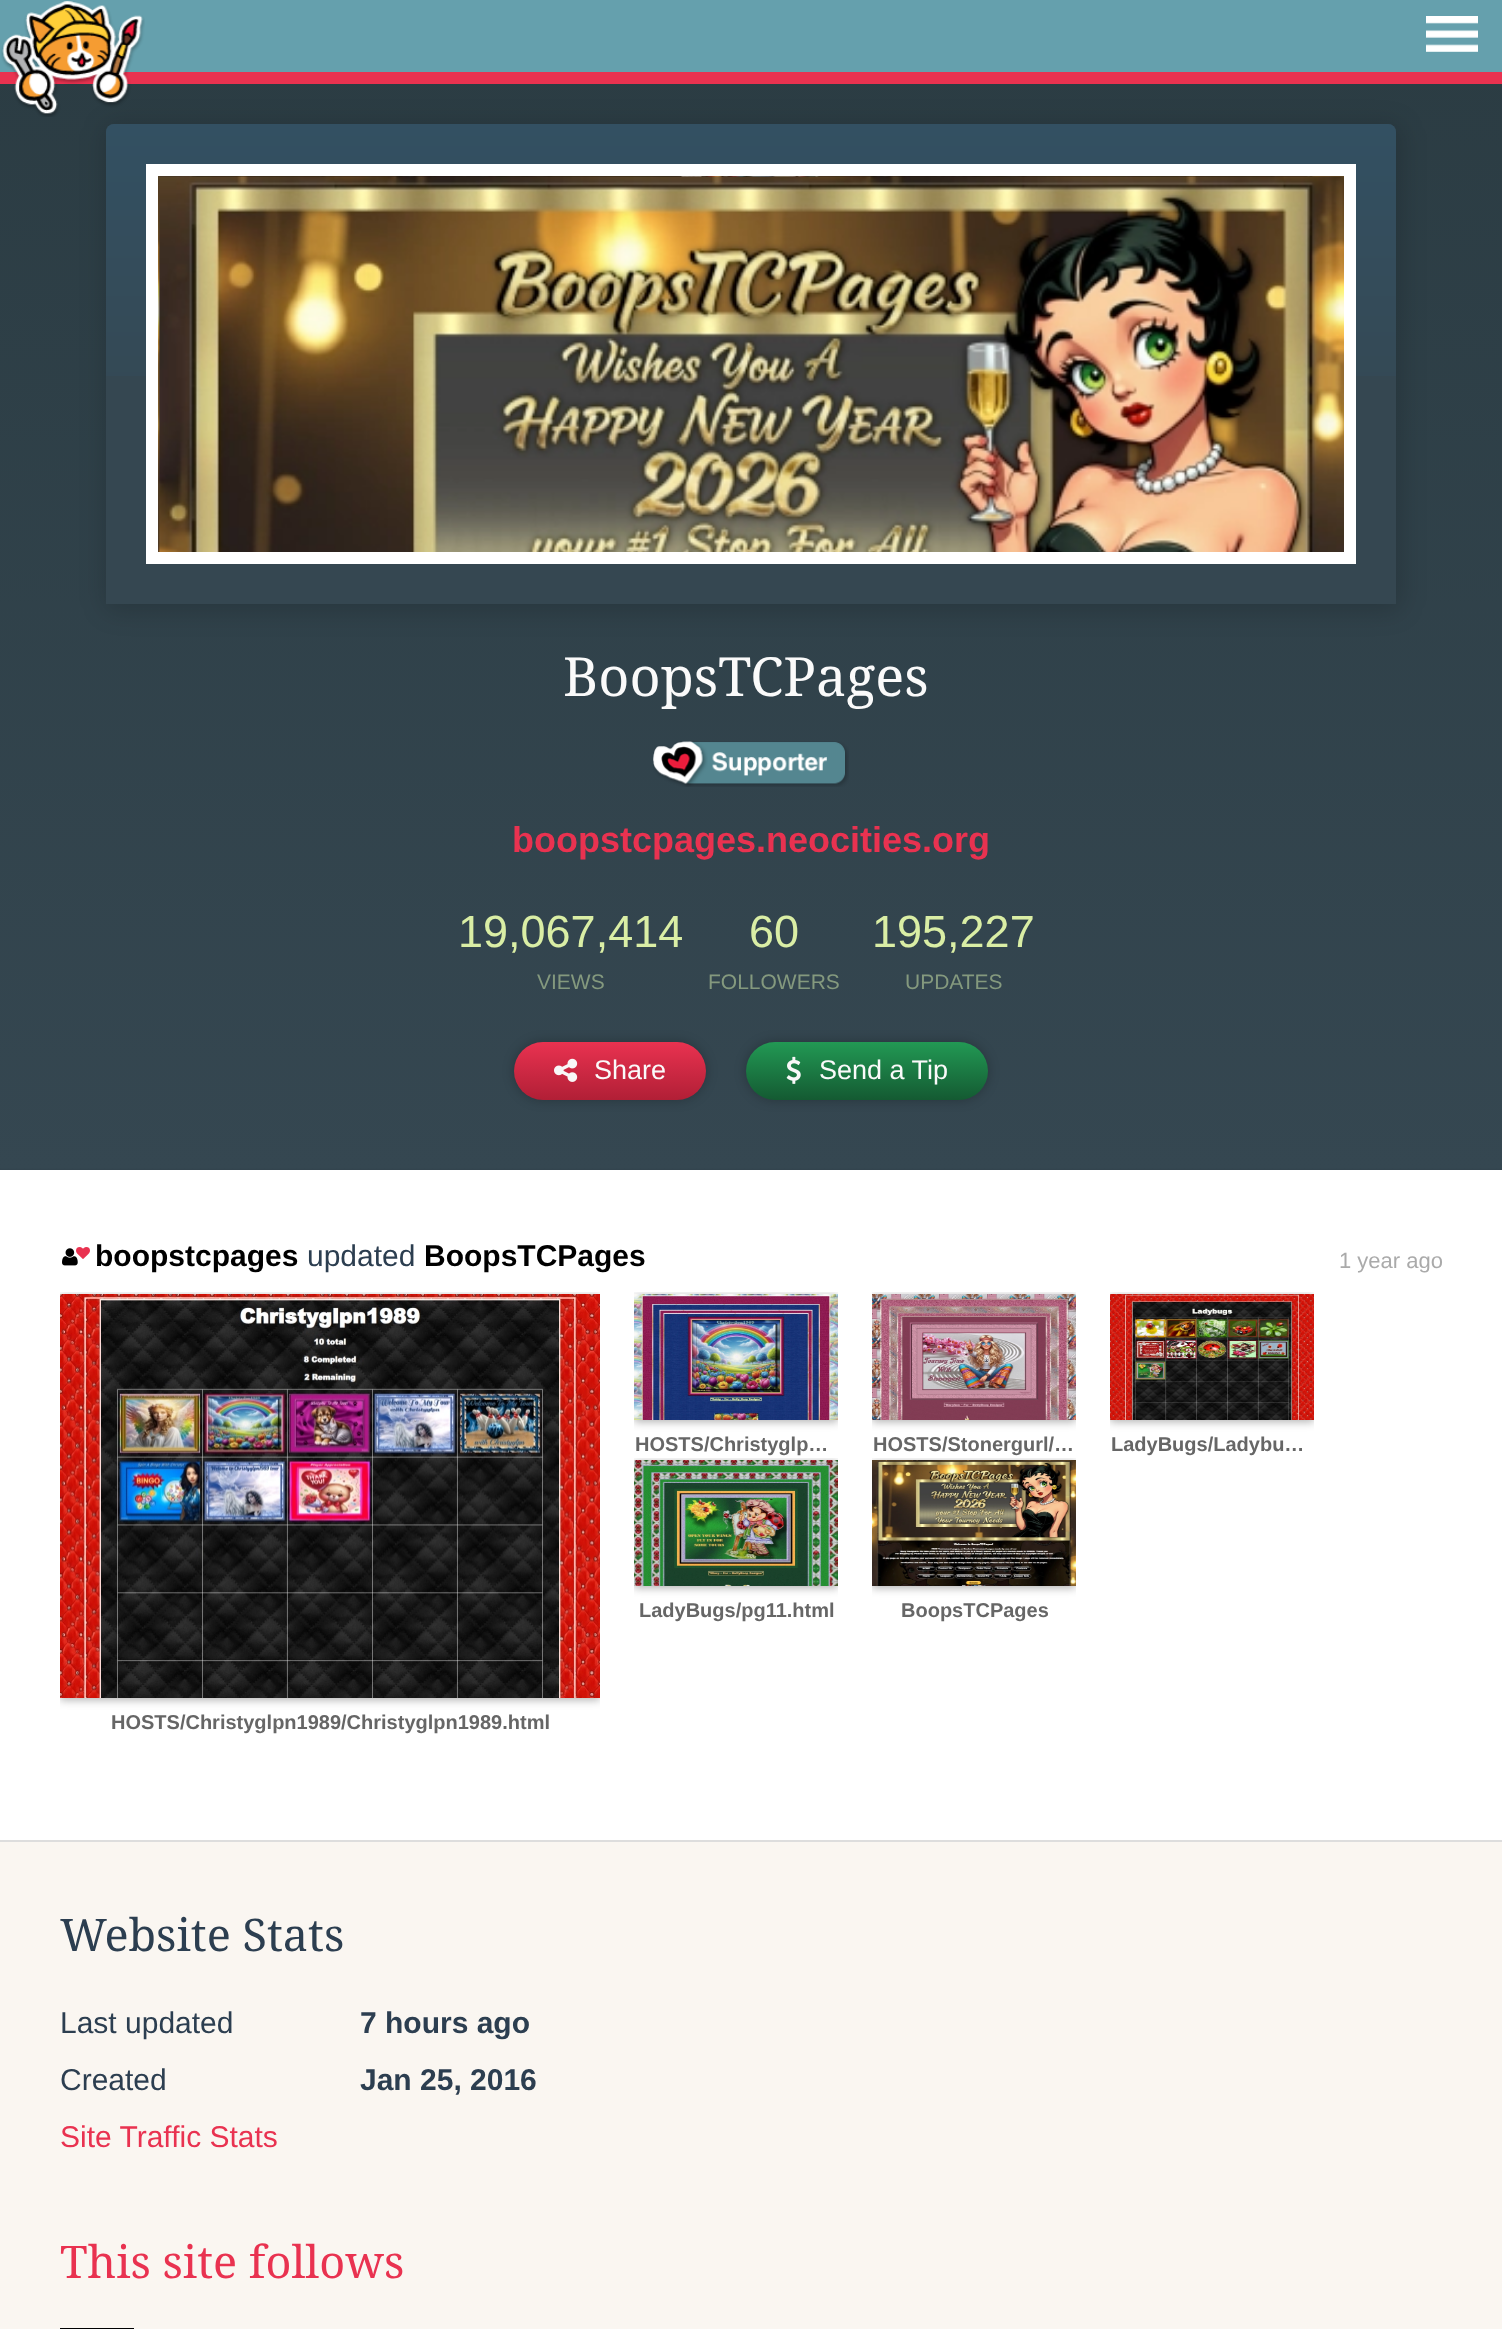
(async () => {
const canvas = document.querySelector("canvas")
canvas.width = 1502
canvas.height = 2329
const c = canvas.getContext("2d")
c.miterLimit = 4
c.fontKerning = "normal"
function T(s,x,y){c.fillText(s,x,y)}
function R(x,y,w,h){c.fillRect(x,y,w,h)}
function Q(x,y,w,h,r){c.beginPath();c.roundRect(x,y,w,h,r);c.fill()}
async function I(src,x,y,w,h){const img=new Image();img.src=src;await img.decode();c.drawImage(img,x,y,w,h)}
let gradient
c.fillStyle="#fff"
R(0,0,1502,2329)
c.fillStyle="#65a0ad"
R(0,0,1502,72)
c.fillStyle="#e93250"
R(0,72,1502,12)
gradient = c.createLinearGradient(751,44,751,1170)
gradient.addColorStop(0,"#2b3c43")
gradient.addColorStop(1,"#354751")
c.fillStyle = gradient
R(0,84,1502,1086)
c.fillStyle="#00000026"
c.filter="blur(12px)"
c.beginPath()
c.roundRect(104,124,1298,488,12)
c.fill()
c.filter="none"
await I("1.png",1,1,144,116)
await I("2.png",1426,16,52,36)
c.fillStyle="#354751"
c.beginPath()
c.roundRect(106,124,1290,480,[8,8,0,0])
c.fill()
await I("3.png",106,124,1290,252)
await I("4.png",158,176,1186,376)
c.strokeStyle="#fff"
c.lineWidth=12
c.strokeRect(152,170,1198,388)
c.font="54px Droid Serif"
c.fillStyle="#fafafa"
T("BoopsTCPages",563,696)
await I("5.png",653,741,196,46)
c.font="bold 36px Liberation Sans"
c.fillStyle="#e93250"
T("boopstcpages.neocities.org",512,852)
c.font="45px Liberation Sans"
c.fillStyle="#daeea5"
T("19,067,414",458,947)
c.font="21px Liberation Sans"
c.fillStyle="#84997e"
T("VIEWS",537,989)
c.font="45px Liberation Sans"
c.fillStyle="#daeea5"
T("60",749,947)
c.font="21px Liberation Sans"
c.fillStyle="#84997e"
T("FOLLOWERS",708,989)
c.font="45px Liberation Sans"
c.fillStyle="#daeea5"
T("195,227",872,947)
c.font="21px Liberation Sans"
c.fillStyle="#84997e"
T("UPDATES",905,989)
c.fillStyle="#00000040"
c.filter="blur(6px)"
c.beginPath()
c.roundRect(514,1042,192,58,29)
c.fill()
c.filter="none"
gradient = c.createLinearGradient(610,1042,610,1100)
gradient.addColorStop(0,"#e93250")
gradient.addColorStop(1,"#b11f36")
c.fillStyle = gradient
Q(514,1042,192,58,29)
await I("6.png",554,1058,24,24)
c.font="27px Liberation Sans"
c.fillStyle="#fafafa"
T("Share",594,1079)
c.fillStyle="#00000040"
c.filter="blur(6px)"
c.beginPath()
c.roundRect(746,1042,242,58,29)
c.fill()
c.filter="none"
gradient = c.createLinearGradient(867,1042,867,1100)
gradient.addColorStop(0,"#229954")
gradient.addColorStop(1,"#145a32")
c.fillStyle = gradient
Q(746,1042,242,58,29)
await I("7.png",786,1056,15,28)
c.fillStyle="#fafafa"
T("Send a Tip",819,1079)
c.fillStyle="#0000001a"
c.filter="blur(1px)"
c.beginPath()
c.rect(-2,1170,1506,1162)
c.fill()
c.filter="none"
c.fillStyle="#faf6f1"
R(0,1842,1502,487)
c.fillStyle="#fff"
R(0,1170,1502,670)
c.fillStyle="#ddd"
R(0,1840,1502,2)
await I("8.png",62,1248,16,18)
await I("9.png",76,1247,14,12)
c.font="bold 30px Liberation Sans"
c.fillStyle="#000"
T("boopstcpages",95,1266)
c.font="30px Liberation Sans"
c.fillStyle="#2c3e50"
T("updated",307,1266)
c.font="bold 30px Liberation Sans"
c.fillStyle="#000"
T("BoopsTCPages",424,1266)
c.font="22px Liberation Sans"
c.fillStyle="#aaa"
T("1 year ago",1339,1268)
c.save()
c.beginPath()
c.rect(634,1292,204,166)
c.clip()
c.fillStyle="#0000004d"
c.filter="blur(4px)"
c.beginPath()
c.rect(634,1296,204,126)
c.fill()
c.filter="none"
c.restore()
await I("10.png",634,1294,204,126)
c.font="bold 20px Liberation Sans"
c.fillStyle="#666"
T("HOSTS/Christyglp…",635,1451)
c.save()
c.beginPath()
c.rect(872,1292,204,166)
c.clip()
c.fillStyle="#0000004d"
c.filter="blur(4px)"
c.beginPath()
c.rect(872,1296,204,126)
c.fill()
c.filter="none"
c.restore()
await I("11.png",872,1294,204,126)
T("HOSTS/Stonergurl/…",873,1451)
c.save()
c.beginPath()
c.rect(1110,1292,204,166)
c.clip()
c.fillStyle="#0000004d"
c.filter="blur(4px)"
c.beginPath()
c.rect(1110,1296,204,126)
c.fill()
c.filter="none"
c.restore()
await I("12.png",1110,1294,204,126)
T("LadyBugs/Ladybu…",1111,1451)
c.save()
c.beginPath()
c.rect(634,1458,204,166)
c.clip()
c.fillStyle="#0000004d"
c.filter="blur(4px)"
c.beginPath()
c.rect(634,1462,204,126)
c.fill()
c.filter="none"
c.restore()
await I("13.png",634,1460,204,126)
T("LadyBugs/pg11.html",639,1617)
c.save()
c.beginPath()
c.rect(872,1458,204,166)
c.clip()
c.fillStyle="#0000004d"
c.filter="blur(4px)"
c.beginPath()
c.rect(872,1462,204,126)
c.fill()
c.filter="none"
c.restore()
await I("14.png",872,1460,204,126)
T("BoopsTCPages",901,1617)
c.save()
c.beginPath()
c.rect(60,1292,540,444)
c.clip()
c.fillStyle="#0000004d"
c.filter="blur(4px)"
c.beginPath()
c.rect(60,1296,540,404)
c.fill()
c.filter="none"
c.restore()
await I("15.png",60,1294,540,404)
T("HOSTS/Christyglpn1989/Christyglpn1989.html",111,1729)
c.font="45px Droid Serif"
c.fillStyle="#2c3e50"
T("Website Stats",60,1951)
c.font="30px Liberation Sans"
T("Last updated",60,2033)
c.font="bold 30px Liberation Sans"
T("7 hours ago",360,2033)
c.font="30px Liberation Sans"
T("Created",60,2090)
c.font="bold 30px Liberation Sans"
T("Jan 25, 2016",360,2090)
c.font="30px Liberation Sans"
c.fillStyle="#e93250"
T("Site Traffic Stats",60,2147)
c.font="45px Droid Serif"
T("This site follows",60,2278)
c.fillStyle="#000001"
R(60,2328,74,1)
})()
